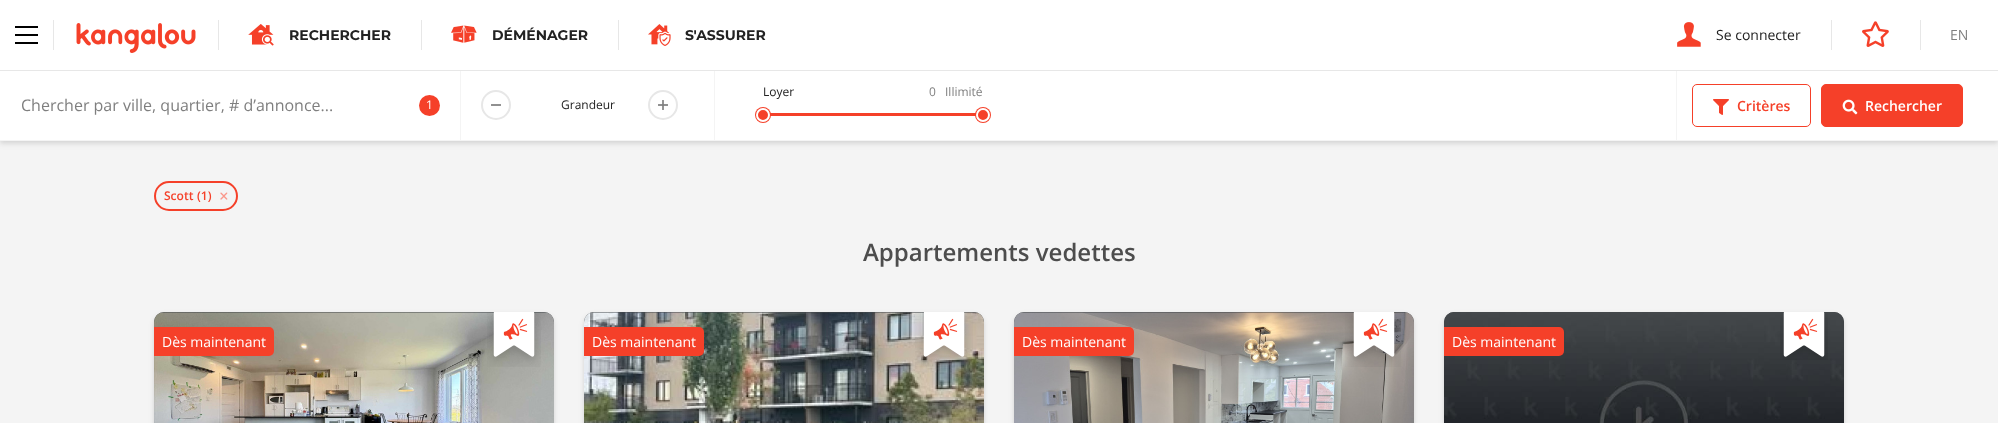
(async () => {
const canvas = document.querySelector("canvas")
canvas.width = 1998
canvas.height = 423
const c = canvas.getContext("2d")
c.miterLimit = 4
c.fontKerning = "normal"
function T(s,x,y){c.fillText(s,x,y)}
function R(x,y,w,h){c.fillRect(x,y,w,h)}
async function I(src,x,y,w,h){const img=new Image();img.src=src;await img.decode();c.drawImage(img,x,y,w,h)}
c.fillStyle="#f4f4f4"
R(0,0,1998,423)
c.fillStyle="#0000000f"
c.filter="blur(3px)"
c.beginPath()
c.rect(0,73,1998,71)
c.fill()
c.filter="none"
c.fillStyle="#00000014"
c.filter="blur(2px)"
c.beginPath()
c.rect(0,72,1998,71)
c.fill()
c.filter="none"
c.fillStyle="#fff"
R(0,0,1998,70)
R(0,71,1998,69)
c.fillStyle="#f4f4f4"
R(714,70,1,70)
R(460,70,1,70)
R(1676,70,1,70)
c.fillStyle="#e7e7e7"
R(0,70,1998,1)
c.fillStyle="#000"
R(15,26,23,2)
R(15,34,23,2)
R(15,42,23,2)
c.fillStyle="#e7e7e7"
R(53,20,1,30)
await I("1.png",76,23,120,30)
R(218,20,1,30)
await I("2.png",248,24,26,22)
c.font="bold 14px Montserrat"
c.fillStyle="#222"
T("RECHERCHER",289,40)
c.fillStyle="#e7e7e7"
R(421,20,1,30)
await I("3.png",451,25,26,18)
c.fillStyle="#222"
T("DÉMÉNAGER",492,40)
c.fillStyle="#e7e7e7"
R(618,20,1,30)
await I("4.png",648,24,23,22)
c.fillStyle="#222"
T("S'ASSURER",685,40)
await I("5.png",1677,22,24,25)
c.font="14px Open Sans"
T("Se connecter",1716,40)
c.fillStyle="#e7e7e7"
R(1831,20,1,30)
await I("6.png",1862,21,27,26)
R(1920,20,1,30)
c.fillStyle="#7f7f7f"
T("EN",1950,40)
c.fillStyle="#f4f4f4"
R(0,140,1998,1)
c.font="12px Open Sans"
c.fillStyle="#222"
T("Loyer",763,96)
c.fillStyle="#7f7f7f"
T("0",929,96)
T("Illimité",945,96)
c.fillStyle="#f54029"
R(763,113,220,3)
c.beginPath()
c.arc(763,115,8,0,7)
c.fill()
c.beginPath()
c.arc(763,115,6,0,7)
c.strokeStyle="#fff"
c.lineWidth=2
c.stroke()
c.beginPath()
c.arc(983,115,8,0,7)
c.fill()
c.beginPath()
c.arc(983,115,6,0,7)
c.stroke()
await I("7.png",434,96,3,3)
c.font="16px Open Sans"
c.fillStyle="#7f7f7f"
T("Chercher par ville, quartier, # d’annonce...",21,111)
c.fillStyle="#f54029"
c.beginPath()
c.arc(429.5,105.5,10.5,0,7)
c.fill()
c.font="12px Open Sans"
c.fillStyle="#fff"
T("1",426,109)
c.beginPath()
c.arc(496,105,14,0,7)
c.strokeStyle="#e7e7e7"
c.stroke()
await I("8.png",491,104,10,2)
c.beginPath()
c.arc(663,105,14,0,7)
c.stroke()
await I("9.png",658,100,10,10)
c.fillStyle="#222"
T("Grandeur",561,109)
c.beginPath()
c.roundRect(1692.5,84.5,118,42,4.5)
c.strokeStyle="#f54029"
c.lineWidth=1
c.stroke()
await I("10.png",1713,99,16,16)
c.font="600 14px Open Sans"
c.fillStyle="#f54029"
T("Critères",1737,111)
c.beginPath()
c.roundRect(1821.5,84.5,141,42,4.5)
c.fill()
c.stroke()
await I("11.png",1842,99,16,16)
c.fillStyle="#fff"
T("Rechercher",1865,111)
c.beginPath()
c.roundRect(155,182,82,28,14)
c.lineWidth=2
c.stroke()
c.font="600 12px Open Sans"
c.fillStyle="#f54029"
T("Scott",164,200)
T("(1)",197,200)
await I("12.png",220,192,8,8)
c.font="600 24px Open Sans"
c.fillStyle="#4d4d4d"
T("Appartements vedettes",863,261)
c.fillStyle="#0000000f"
c.filter="blur(3px)"
c.beginPath()
c.roundRect(154,315,400,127,10)
c.fill()
c.filter="none"
c.fillStyle="#00000014"
c.filter="blur(2px)"
c.beginPath()
c.roundRect(154,314,400,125,10)
c.fill()
c.filter="none"
await I("13.png",154,312,400,10)
await I("14.png",154,312,400,111)
c.fillStyle="#f54029"
c.beginPath()
c.roundRect(154,327,120,29,[0,5,5,0])
c.fill()
c.font="14px Open Sans"
c.fillStyle="#fff"
T("Dès maintenant",162,347)
await I("15.png",487,312,54,55)
c.fillStyle="#0000000f"
c.filter="blur(3px)"
c.beginPath()
c.roundRect(584,315,400,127,10)
c.fill()
c.filter="none"
c.fillStyle="#00000014"
c.filter="blur(2px)"
c.beginPath()
c.roundRect(584,314,400,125,10)
c.fill()
c.filter="none"
await I("13.png",584,312,400,10)
await I("16.png",584,312,400,111)
c.fillStyle="#f54029"
c.beginPath()
c.roundRect(584,327,120,29,[0,5,5,0])
c.fill()
c.fillStyle="#fff"
T("Dès maintenant",592,347)
await I("17.png",915,312,58,55)
c.fillStyle="#0000000f"
c.filter="blur(3px)"
c.beginPath()
c.roundRect(1014,315,400,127,10)
c.fill()
c.filter="none"
c.fillStyle="#00000014"
c.filter="blur(2px)"
c.beginPath()
c.roundRect(1014,314,400,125,10)
c.fill()
c.filter="none"
await I("13.png",1014,312,400,10)
await I("18.png",1014,312,400,111)
c.fillStyle="#f54029"
c.beginPath()
c.roundRect(1014,327,120,29,[0,5,5,0])
c.fill()
c.fillStyle="#fff"
T("Dès maintenant",1022,347)
await I("19.png",1345,312,56,55)
c.fillStyle="#0000000f"
c.filter="blur(3px)"
c.beginPath()
c.roundRect(1444,315,400,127,10)
c.fill()
c.filter="none"
c.fillStyle="#00000014"
c.filter="blur(2px)"
c.beginPath()
c.roundRect(1444,314,400,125,10)
c.fill()
c.filter="none"
await I("20.png",1444,312,400,111)
await I("21.png",1444,312,400,82)
c.fillStyle="#f54029"
c.beginPath()
c.roundRect(1444,327,120,29,[0,5,5,0])
c.fill()
c.fillStyle="#fff"
T("Dès maintenant",1452,347)
await I("22.png",1780,312,48,48)
})()
